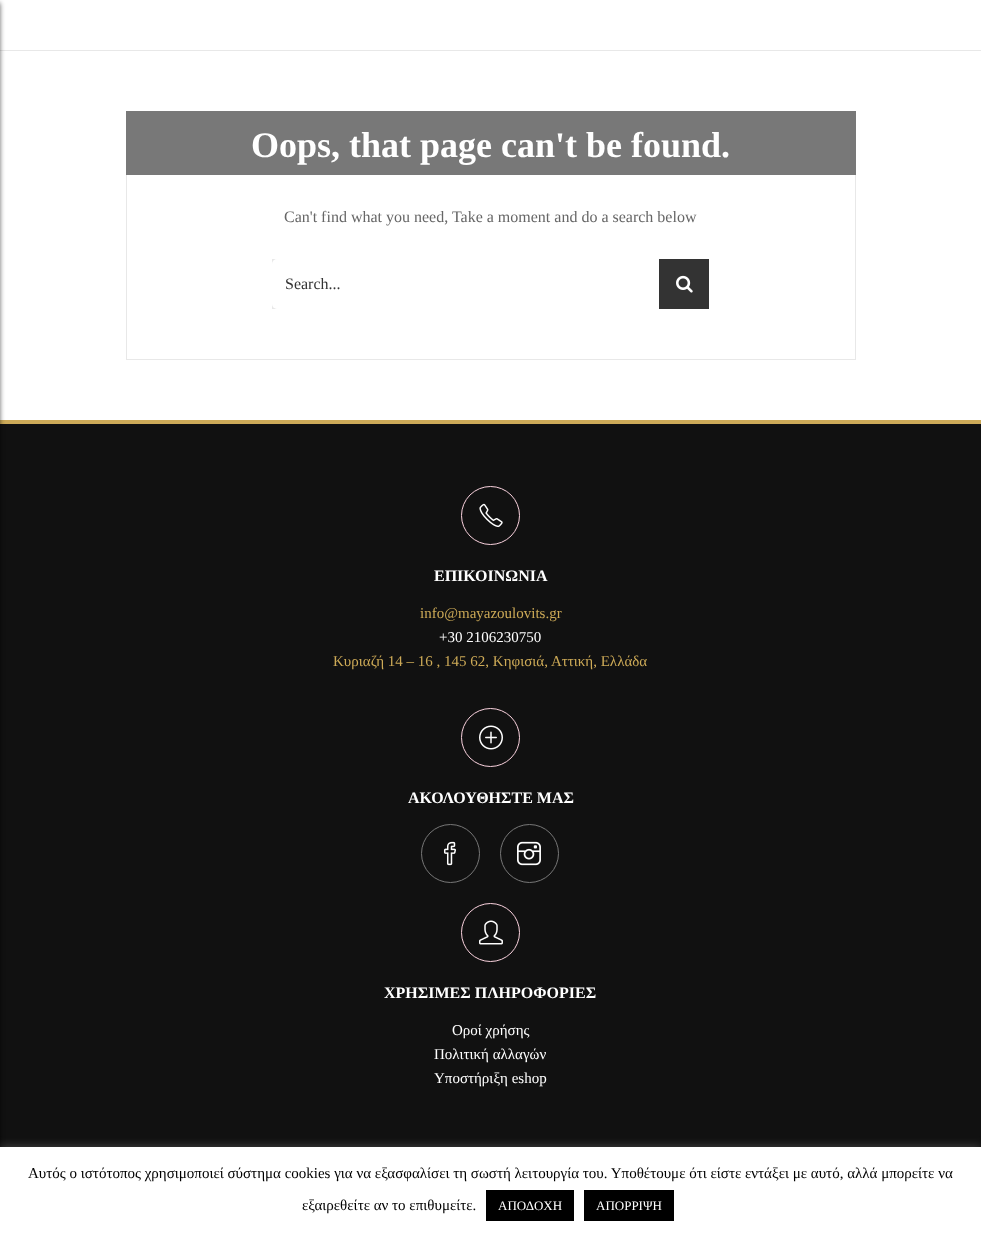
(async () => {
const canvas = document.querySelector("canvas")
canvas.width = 981
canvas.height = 1238
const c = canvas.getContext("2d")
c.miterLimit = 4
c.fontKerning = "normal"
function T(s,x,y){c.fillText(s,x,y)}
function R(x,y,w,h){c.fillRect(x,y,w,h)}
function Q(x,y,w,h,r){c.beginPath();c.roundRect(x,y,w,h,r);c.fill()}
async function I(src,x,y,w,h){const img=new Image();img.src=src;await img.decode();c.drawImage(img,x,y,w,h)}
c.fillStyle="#fff"
R(0,0,981,1238)
c.fillStyle="#e8e8e8"
R(0,50,981,1)
c.fillStyle="#111"
R(0,424,981,723)
c.fillStyle="#cdaa58"
R(0,420,981,4)
c.fillStyle="#00000099"
c.filter="blur(2.5px)"
c.beginPath()
c.rect(-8,3,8,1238)
c.fill()
c.filter="none"
c.fillStyle="#787878"
R(126,111,730,64)
c.font="bold 36px Liberation Serif"
c.fillStyle="#fff"
T("Oops, that page can't be found.",251,157)
c.fillStyle="#e8e8e8"
R(855,175,1,185)
R(126,359,730,1)
R(126,175,1,185)
c.font="16px Liberation Serif"
c.fillStyle="#666"
T("Can't find what you need, Take a moment and do a search below",284,222)
c.fillStyle="#e8e8e8"
R(272,259,5,50)
c.fillStyle="#fff"
Q(272,259,437,50,5)
c.fillStyle="#333"
T("Search...",285,289)
R(659,259,50,50)
await I("1.png",676,275,17,18)
c.beginPath()
c.arc(490.5,515.5,29,0,7)
c.strokeStyle="#fad2de"
c.stroke()
await I("2.png",479,503,24,25)
c.font="bold 16px Liberation Serif"
c.fillStyle="#fff"
T("ΕΠΙΚΟΙΝΩΝΙΑ",434,581)
c.font="15px Liberation Serif"
c.fillStyle="#cdaa57"
T("info@mayazoulovits.gr",420,618)
c.fillStyle="#fff"
T("+30 2106230750",439,642)
c.fillStyle="#cdaa57"
T("Κυριαζή 14 – 16 , 145 62, Κηφισιά, Αττική, Ελλάδα",333,666)
c.beginPath()
c.arc(490.5,737.5,29,0,7)
c.stroke()
await I("3.png",479,725,24,25)
c.font="bold 16px Liberation Serif"
c.fillStyle="#fff"
T("ΑΚΟΛΟΥΘΗΣΤΕ ΜΑΣ",408,803)
c.beginPath()
c.arc(450.5,853.5,29,0,7)
c.strokeStyle="#777"
c.stroke()
await I("4.png",443,841,13,25)
c.beginPath()
c.arc(529.5,853.5,29,0,7)
c.stroke()
await I("5.png",517,841,24,25)
c.beginPath()
c.arc(490.5,932.5,29,0,7)
c.strokeStyle="#fad2de"
c.stroke()
await I("6.png",479,920,24,25)
T("ΧΡΗΣΙΜΕΣ ΠΛΗΡΟΦΟΡΙΕΣ",384,998)
c.font="15px Liberation Serif"
T("Οροί χρήσης",452,1035)
T("Πολιτική αλλαγών",434,1059)
T("Υποστήριξη eshop",434,1083)
c.fillStyle="#acabab4d"
c.filter="blur(5px)"
c.beginPath()
c.rect(0,1146,981,91)
c.fill()
c.filter="none"
c.fillStyle="#fff"
R(0,1147,981,91)
c.fillStyle="#000"
T("Αυτός ο ιστότοπος χρησιμοποιεί σύστημα cookies για να εξασφαλίσει τη σωστή λειτουργία του. Υποθέτουμε ότι είστε εντάξει με αυτό, αλλά μπορείτε να",28,1178)
T("εξαιρεθείτε αν το επιθυμείτε.",302,1210)
R(486,1190,88,31)
c.font="13px Liberation Serif"
c.fillStyle="#fff"
T("ΑΠΟΔΟΧΗ",498,1210)
c.fillStyle="#000"
R(584,1190,90,31)
c.fillStyle="#fff"
T("ΑΠΟΡΡΙΨΗ",596,1210)
})()
